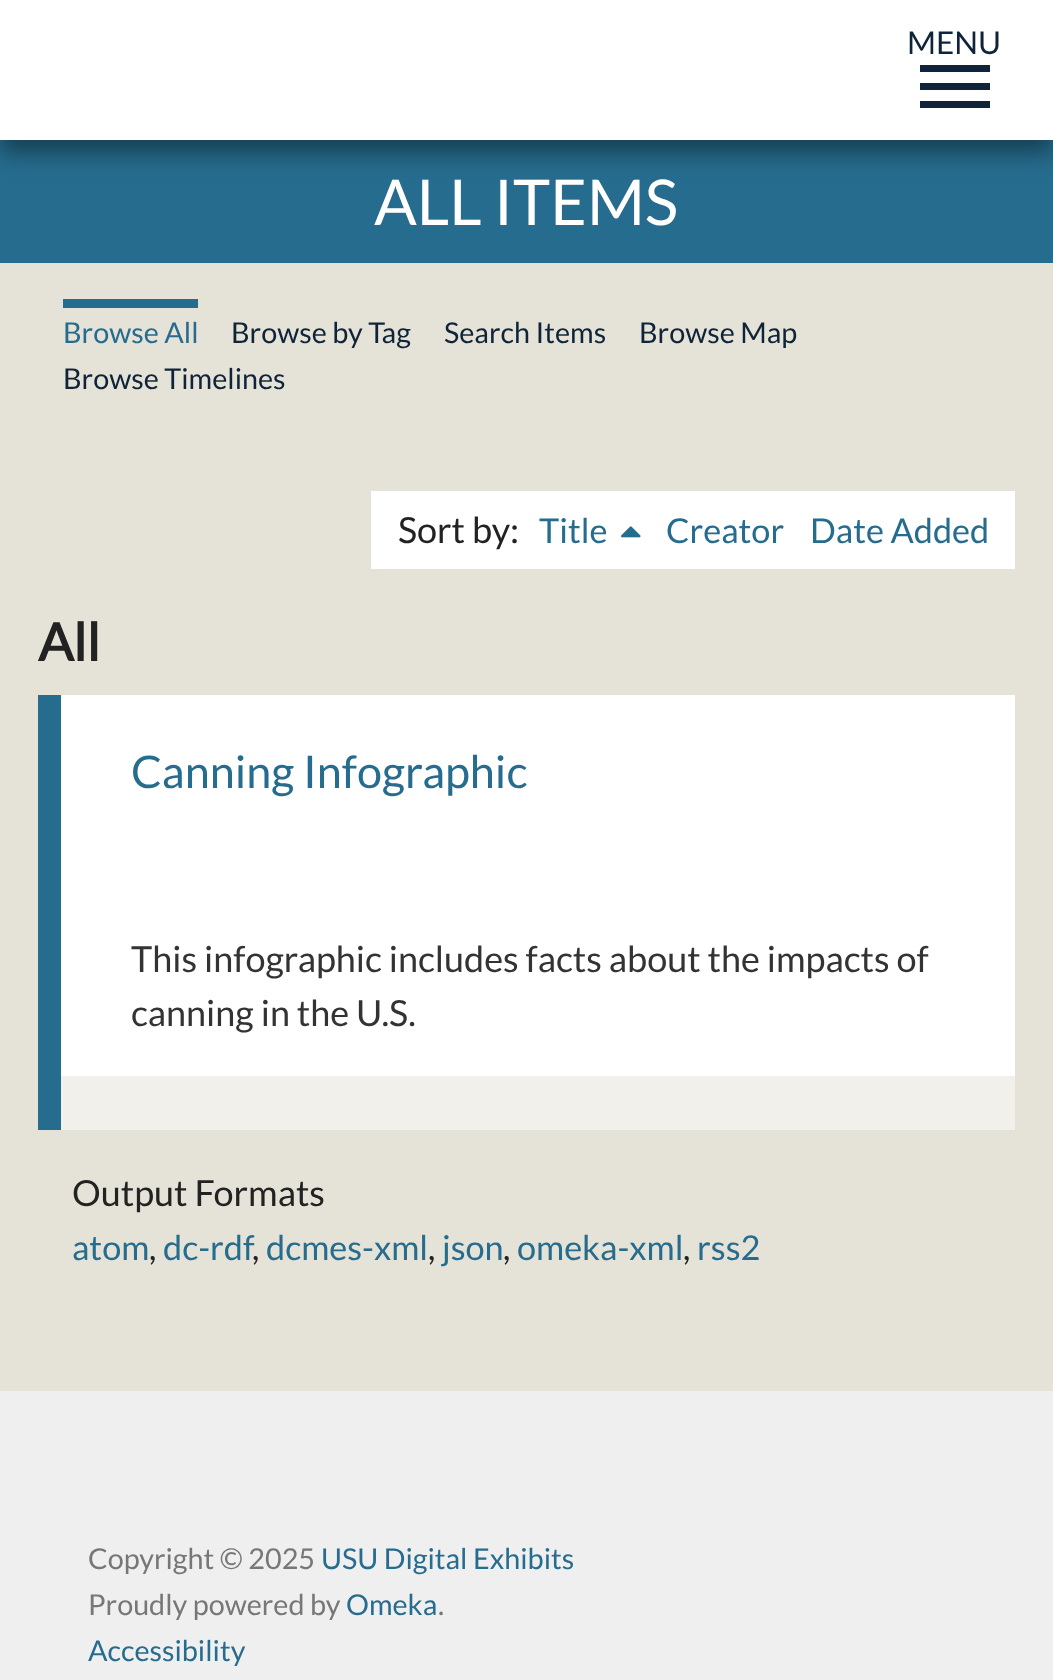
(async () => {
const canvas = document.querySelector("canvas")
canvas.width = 1053
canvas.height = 1680
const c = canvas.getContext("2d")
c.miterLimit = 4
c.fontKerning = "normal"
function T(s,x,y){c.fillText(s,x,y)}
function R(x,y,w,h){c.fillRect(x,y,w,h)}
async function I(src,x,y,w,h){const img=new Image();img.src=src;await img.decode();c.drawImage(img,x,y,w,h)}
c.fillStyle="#e5e2d7"
R(0,0,1053,1680)
c.fillStyle="#266c8e"
R(0,140,1053,123)
c.fillStyle="#00000066"
c.filter="blur(11px)"
c.beginPath()
c.rect(0,14,1053,139)
c.fill()
c.filter="none"
c.fillStyle="#fff"
R(0,0,1053,140)
c.font="31.5px Lato"
c.fillStyle="#0f2439"
T("MENU",907,54)
R(920,83,70,7)
R(920,65,70,7)
R(920,101,70,7)
c.font="63px Lato"
c.fillStyle="#fff"
T("ALL ITEMS",374,225)
c.fillStyle="#266c8e"
R(63,299,135,9)
c.font="28.75px Lato"
T("Browse All",63,343)
c.fillStyle="#0f2439"
T("Browse by Tag",231,343)
T("Search Items",444,343)
T("Browse Map",639,343)
T("Browse Timelines",63,389)
c.fillStyle="#fff"
R(371,491,644,78)
c.font="36px Lato"
c.fillStyle="#222"
T("Sort by:",398,543)
c.font="34.25px Lato"
c.fillStyle="#266c8e"
T("Title",539,543)
await I("1.png",621,526,20,12)
T("Creator",666,543)
T("Date Added",810,543)
c.font="bold 52px Lato"
c.fillStyle="#222"
T("All",38,661)
c.fillStyle="#f2f0eb"
R(61,1076,954,54)
c.fillStyle="#266c8e"
R(38,695,23,435)
c.fillStyle="#fff"
R(61,695,954,381)
c.font="45px Lato"
c.fillStyle="#266c8e"
T("Canning Infographic",131,788)
c.font="36px Lato"
c.fillStyle="#333"
T("This infographic includes facts about the impacts of",131,972)
T("canning in the U.S.",131,1026)
c.fillStyle="#222"
T("Output Formats",72,1206)
c.font="34.25px Lato"
c.fillStyle="#266c8e"
T("atom",72,1260)
c.fillStyle="#222"
T(",",149,1260)
c.fillStyle="#266c8e"
T("dc-rdf",163,1260)
c.fillStyle="#222"
T(",",252,1260)
c.fillStyle="#266c8e"
T("dcmes-xml",266,1260)
c.fillStyle="#222"
T(",",428,1260)
c.fillStyle="#266c8e"
T("json",442,1260)
c.fillStyle="#222"
T(",",503,1260)
c.fillStyle="#266c8e"
T("omeka-xml",517,1260)
c.fillStyle="#222"
T(",",683,1260)
c.fillStyle="#266c8e"
T("rss2",697,1260)
c.fillStyle="#efefef"
R(0,1391,1053,289)
c.font="28.75px Lato"
c.fillStyle="#777"
T("Copyright © 2025",88,1569)
c.fillStyle="#266c8e"
T("USU Digital Exhibits",321,1569)
c.fillStyle="#777"
T("Proudly powered by",88,1615)
c.fillStyle="#266c8e"
T("Omeka",346,1615)
c.fillStyle="#777"
T(".",438,1615)
c.fillStyle="#266c8e"
T("Accessibility",88,1661)
})()
